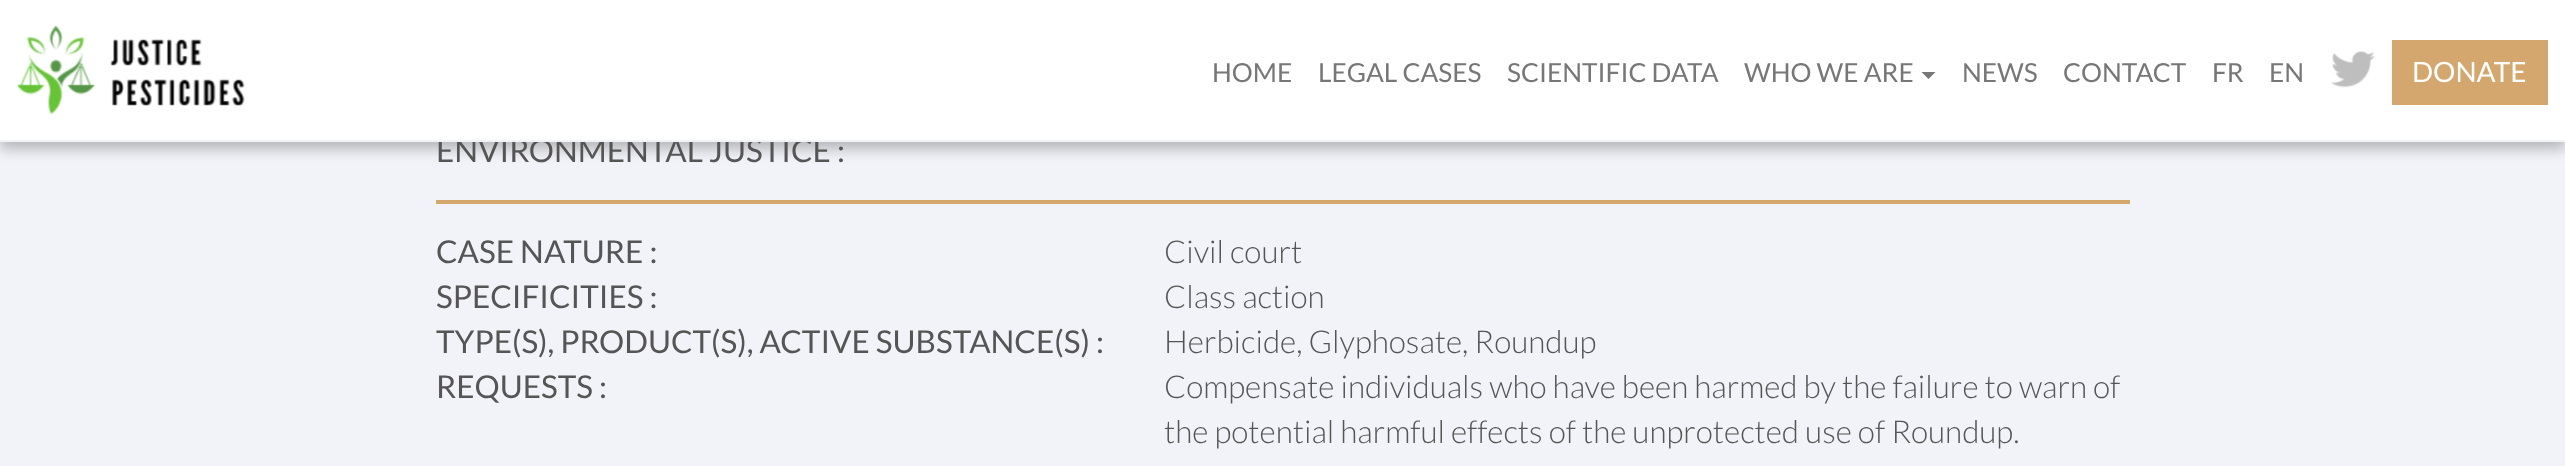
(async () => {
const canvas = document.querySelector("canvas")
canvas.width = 2565
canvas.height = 466
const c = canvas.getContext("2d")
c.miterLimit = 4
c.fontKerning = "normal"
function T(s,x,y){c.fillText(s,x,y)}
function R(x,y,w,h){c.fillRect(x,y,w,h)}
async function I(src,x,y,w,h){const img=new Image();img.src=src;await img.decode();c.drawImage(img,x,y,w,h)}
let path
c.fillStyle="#f2f3f8"
R(0,0,2565,466)
c.fillStyle="#00000040"
c.filter="blur(7px)"
c.beginPath()
c.rect(0,7,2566,142)
c.fill()
c.filter="none"
c.font="31.5px Lato"
c.fillStyle="#555"
T("ENVIRONMENTAL JUSTICE :",436,162)
c.fillStyle="#fff"
R(0,0,2565,140)
c.fillStyle="#f2f3f8"
R(0,140,2565,2)
await I("1.png",18,26,227,88)
c.font="26.25px Lato"
c.fillStyle="#777"
T("HOME",1212,82)
T("LEGAL CASES",1318,82)
T("SCIENTIFIC DATA",1507,82)
T("WHO WE ARE",1744,82)
path = new Path2D("M1921.5 72h14l-7 7z")
c.fill(path)
T("NEWS",1962,82)
T("CONTACT",2063,82)
T("FR",2212,82)
T("EN",2269,82)
await I("2.png",2331,51,45,37)
c.fillStyle="#d3a76e"
R(2392,40,156,65)
c.font="28px Lato"
c.fillStyle="#fff"
T("DONATE",2412,82)
c.fillStyle="#d3a76e"
R(436,200,1694,4)
c.font="31.5px Lato"
c.fillStyle="#555"
T("CASE NATURE :",436,263)
c.font="300 31.5px Lato"
T("Civil court",1164,263)
c.font="31.5px Lato"
T("SPECIFICITIES :",436,308)
c.font="300 31.5px Lato"
T("Class action",1164,308)
c.font="31.5px Lato"
T("TYPE(S), PRODUCT(S), ACTIVE SUBSTANCE(S) :",436,353)
c.font="300 31.5px Lato"
T("Herbicide, Glyphosate, Roundup",1164,353)
c.font="31.5px Lato"
T("REQUESTS :",436,398)
c.font="300 31.5px Lato"
T("Compensate individuals who have been harmed by the failure to warn of",1164,398)
T("the potential harmful effects of the unprotected use of Roundup.",1164,443)
})()
